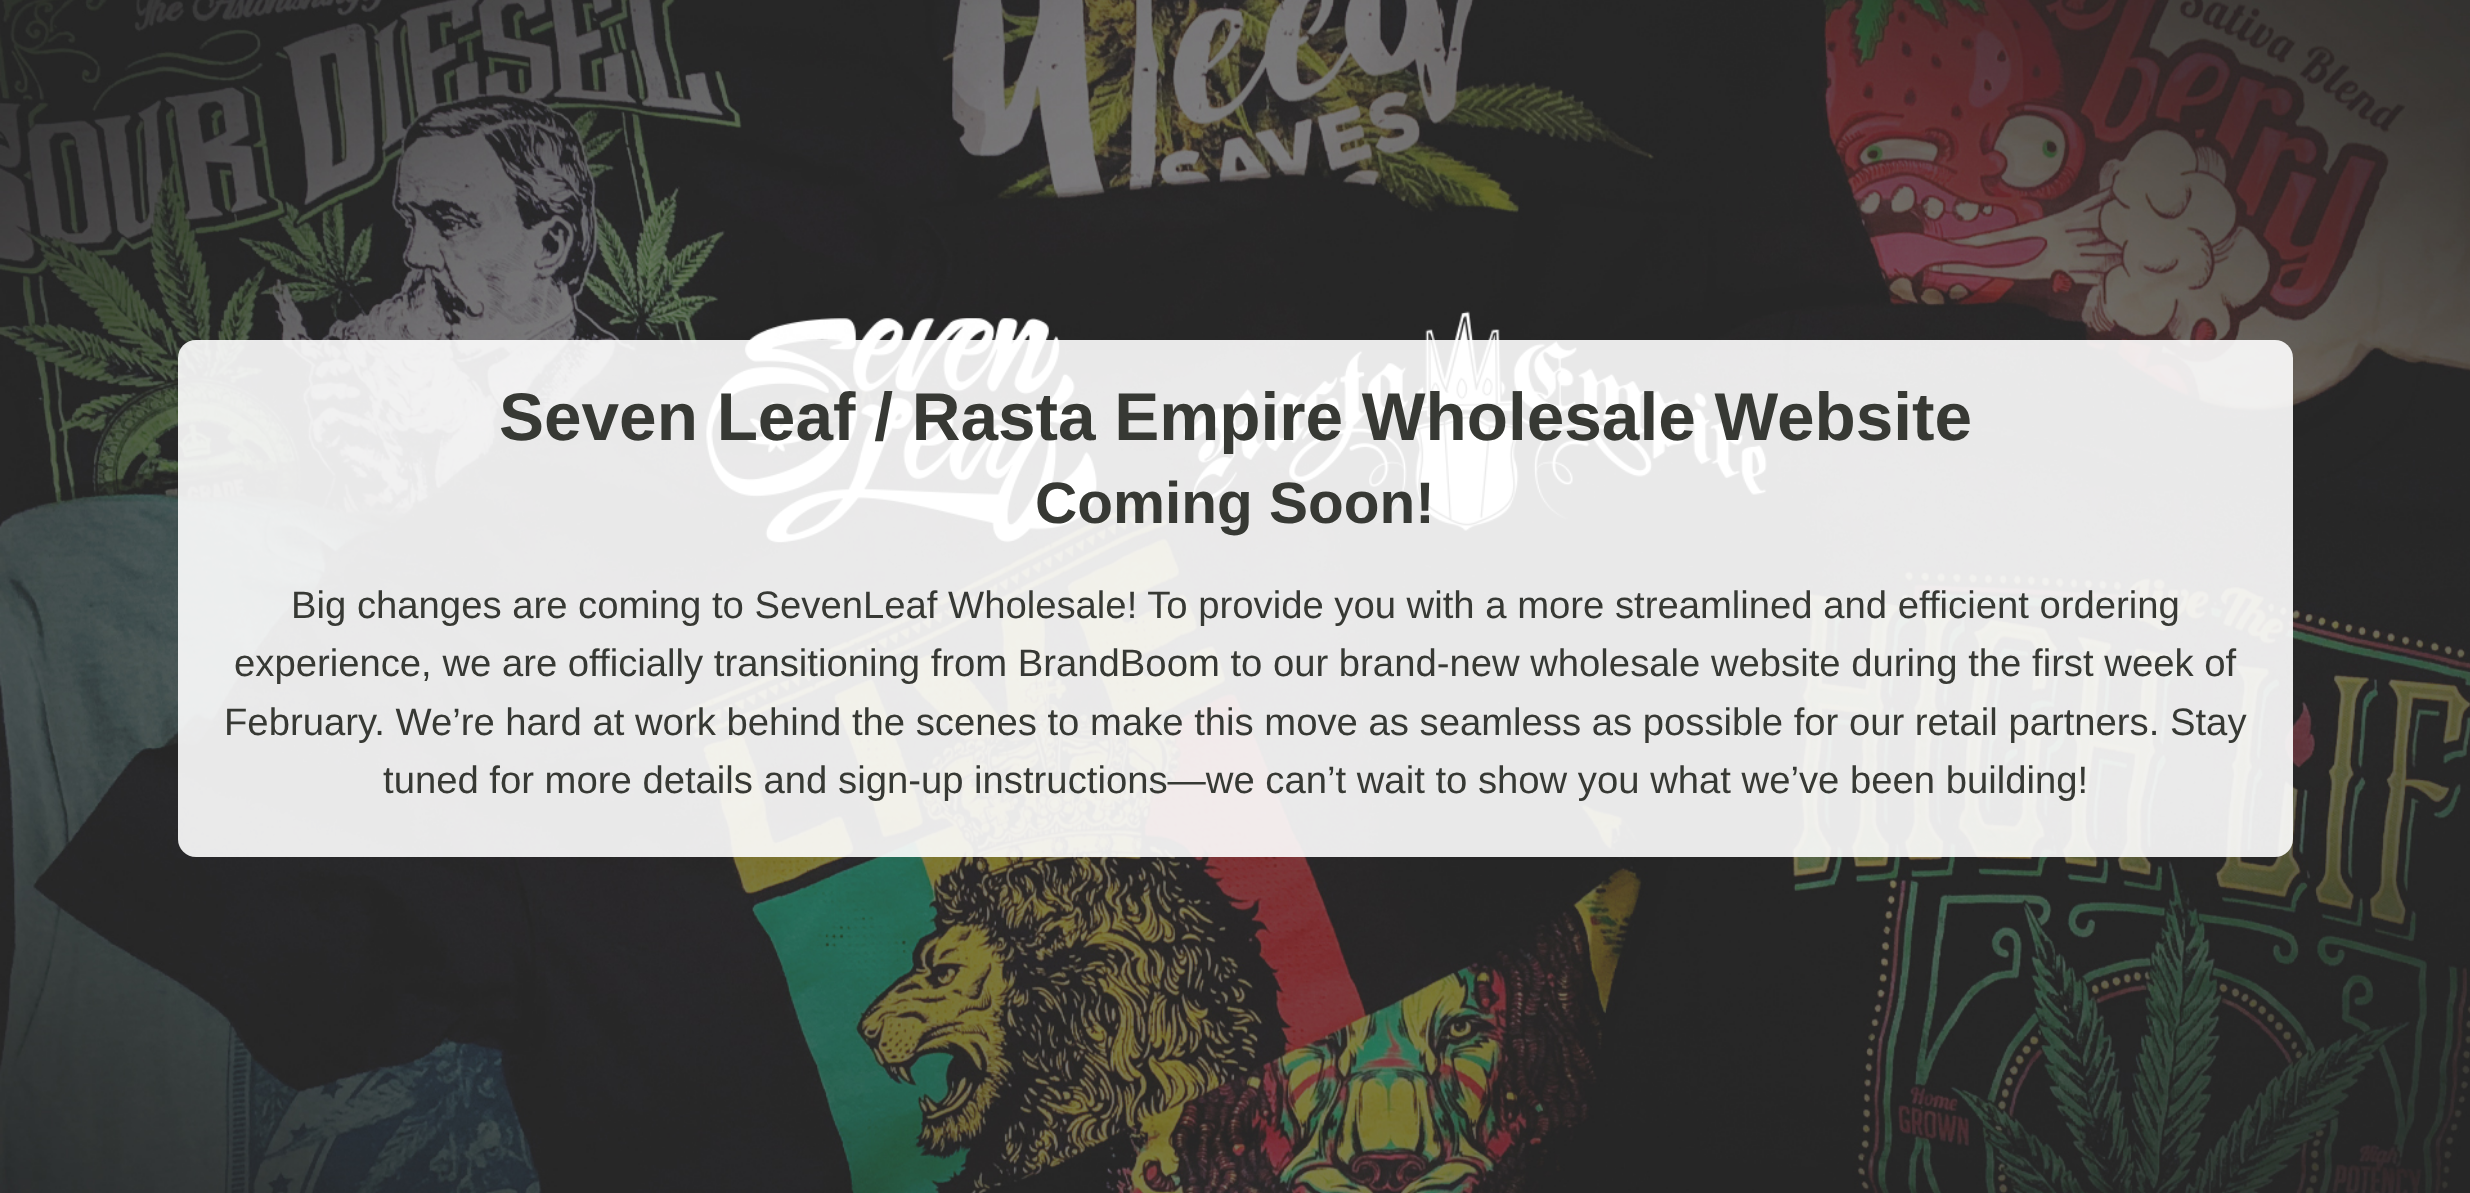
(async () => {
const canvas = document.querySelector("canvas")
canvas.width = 2470
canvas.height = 1193
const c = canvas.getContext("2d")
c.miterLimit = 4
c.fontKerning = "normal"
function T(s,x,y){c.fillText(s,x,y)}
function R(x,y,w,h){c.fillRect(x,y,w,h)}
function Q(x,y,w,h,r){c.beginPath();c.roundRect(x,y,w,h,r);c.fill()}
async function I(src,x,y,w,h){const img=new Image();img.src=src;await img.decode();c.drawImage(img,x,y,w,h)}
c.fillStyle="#fff"
R(0,0,2470,1193)
await I("1.png",0,0,2470,1193)
c.fillStyle="#ffffffe6"
Q(178,340,2115,517,18)
c.font="bold 67.5px Liberation Sans"
c.fillStyle="#373934"
T("Seven Leaf / Rasta Empire Wholesale Website",499,440)
c.font="bold 58.5px Liberation Sans"
T("Coming Soon!",1035,523)
c.font="38.25px Liberation Sans"
T("Big changes are coming to SevenLeaf Wholesale! To provide you with a more streamlined and efficient ordering",291,618)
T("experience, we are officially transitioning from BrandBoom to our brand-new wholesale website during the first week of",234,676)
T("February. We’re hard at work behind the scenes to make this move as seamless as possible for our retail partners. Stay",224,735)
T("tuned for more details and sign-up instructions—we can’t wait to show you what we’ve been building!",383,793)
})()
